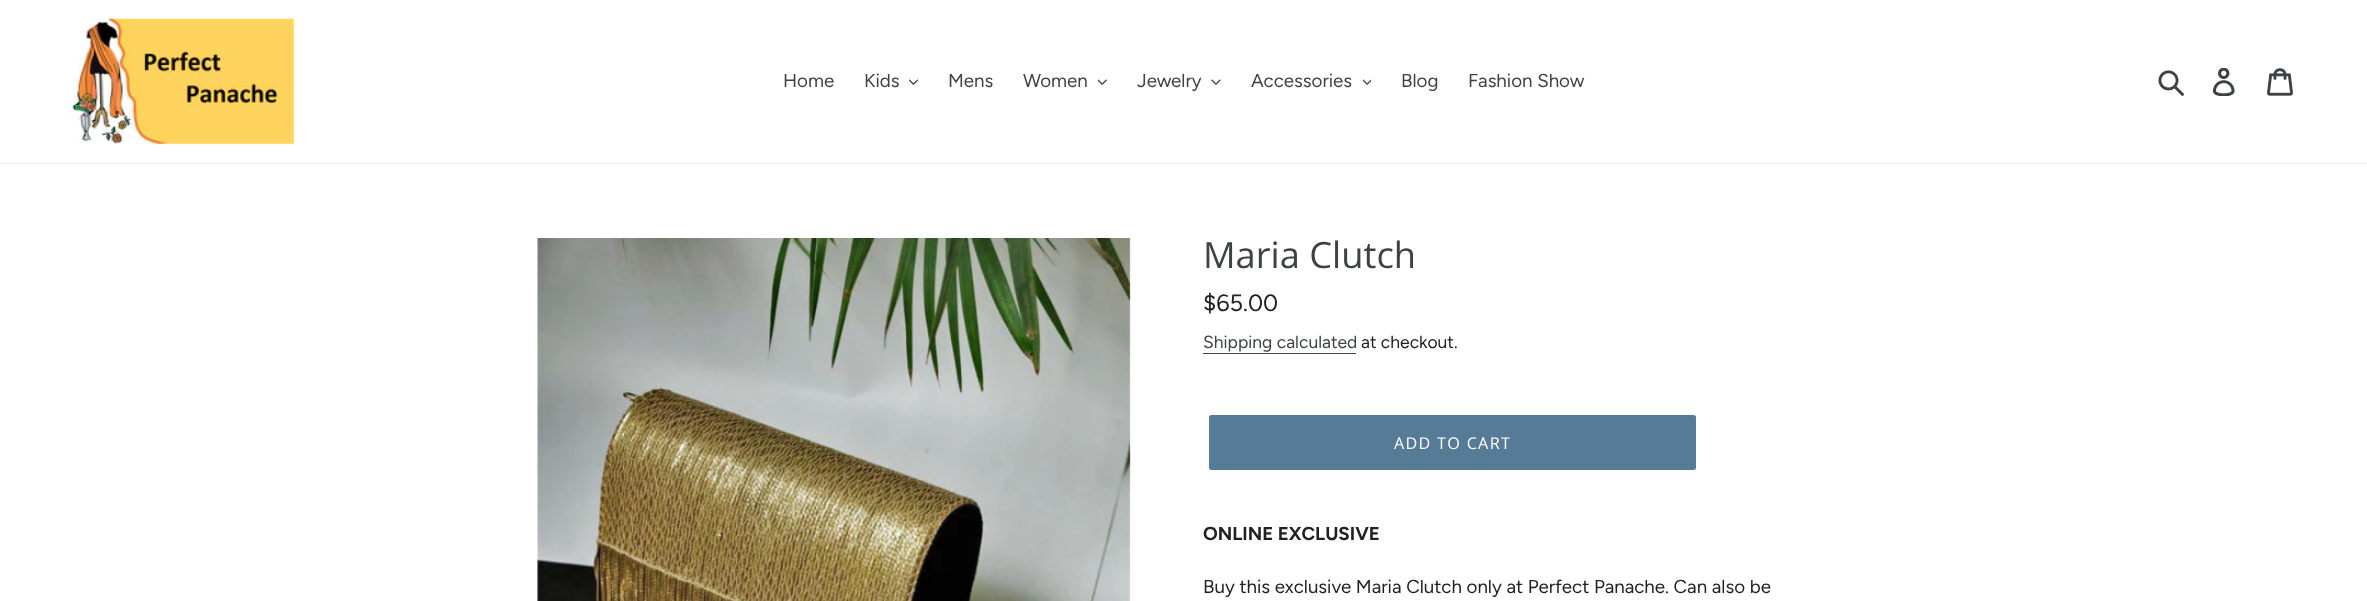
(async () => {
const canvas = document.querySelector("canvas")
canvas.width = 2367
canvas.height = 601
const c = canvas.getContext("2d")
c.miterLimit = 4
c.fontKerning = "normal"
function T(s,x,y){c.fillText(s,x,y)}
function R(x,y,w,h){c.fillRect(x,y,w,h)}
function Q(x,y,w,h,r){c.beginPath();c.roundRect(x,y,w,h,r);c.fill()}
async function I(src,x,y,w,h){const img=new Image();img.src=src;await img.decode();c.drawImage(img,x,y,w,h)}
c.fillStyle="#fff"
R(0,0,2367,601)
c.fillStyle="#e8e9eb"
R(0,163,2367,1)
await I("1.png",69,18,225,126)
c.font="18.75px Figtree"
c.fillStyle="#3d4246"
T("Home",783,87)
T("Kids",864,87)
await I("2.png",909,79,10,6)
T("Mens",948,87)
T("Women",1023,87)
await I("3.png",1098,79,9,6)
T("Jewelry",1137,87)
await I("4.png",1211,79,10,6)
T("Accessories",1251,87)
await I("5.png",1363,79,8,6)
T("Blog",1401,87)
T("Fashion Show",1468,87)
await I("6.png",2158,70,26,26)
await I("7.png",2213,68,22,28)
await I("8.png",2267,68,26,28)
await I("9.png",537,238,594,363)
c.font="36.25px Open Sans"
T("Maria Clutch",1203,268)
c.font="23.5px Figtree"
c.fillStyle="#202124"
T("$65.00",1203,311)
c.font="17.5px Figtree"
c.fillStyle="#3d4246"
T("Shipping calculated",1203,348)
R(1203,353,153,1)
c.fillStyle="#202124"
T("at checkout.",1361,348)
c.fillStyle="#557b97"
Q(1209,415,487,55,2.5)
c.letterSpacing="1.25px"
c.font="16.25px Open Sans"
c.fillStyle="#fff"
T("ADD TO CART",1394,449)
c.letterSpacing="0px"
c.font="bold 18.75px Figtree"
c.fillStyle="#202124"
T("ONLINE EXCLUSIVE",1203,540)
c.font="18.75px Figtree"
T("Buy this exclusive Maria Clutch only at Perfect Panache. Can also be",1203,593)
})()
